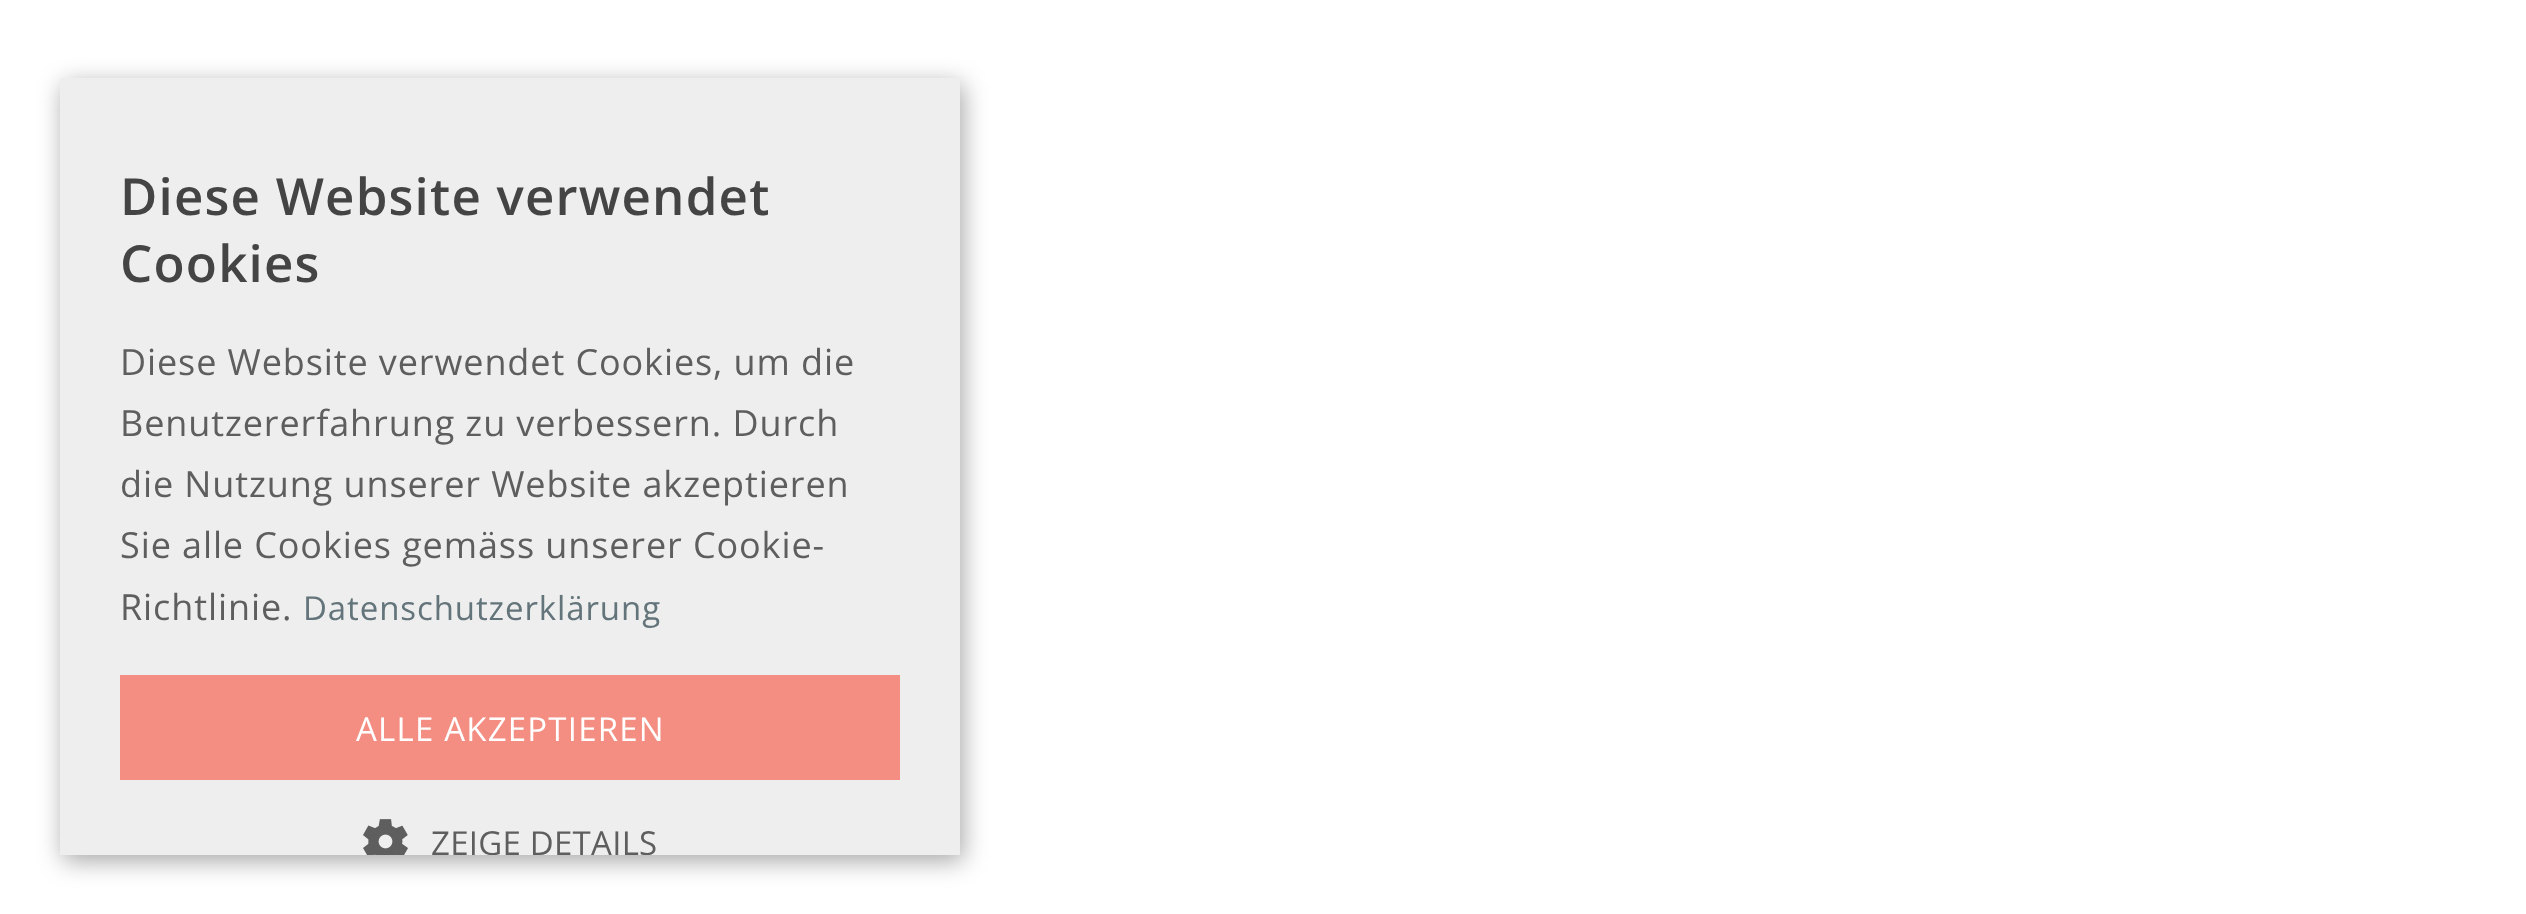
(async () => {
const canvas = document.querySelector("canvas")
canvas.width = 2526
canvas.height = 914
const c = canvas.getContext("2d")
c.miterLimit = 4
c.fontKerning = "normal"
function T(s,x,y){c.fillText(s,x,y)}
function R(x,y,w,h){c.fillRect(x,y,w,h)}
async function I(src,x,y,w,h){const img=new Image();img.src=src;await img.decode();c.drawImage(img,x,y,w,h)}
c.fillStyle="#fff"
R(0,0,2526,914)
c.fillStyle="#00000059"
c.filter="blur(12px)"
c.beginPath()
c.rect(63,84,900,777)
c.fill()
c.filter="none"
c.fillStyle="#eee"
R(60,78,900,777)
c.letterSpacing="1.2px"
c.font="600 51px Open Sans"
c.fillStyle="#444"
T("Diese Website verwendet",120,215)
T("Cookies",120,282)
c.letterSpacing="0.9px"
c.font="36px Open Sans"
c.fillStyle="#5e5e5e"
T("Diese Website verwendet Cookies, um die",120,375)
T("Benutzererfahrung zu verbessern. Durch",120,436)
T("die Nutzung unserer Website akzeptieren",120,497)
T("Sie alle Cookies gemäss unserer Cookie-",120,558)
T("Richtlinie.",120,620)
c.font="33px Open Sans"
c.fillStyle="#63747a"
T("Datenschutzerklärung",303,620)
c.fillStyle="#f58e82"
R(120,675,780,105)
c.letterSpacing="1.2px"
c.fillStyle="#fff"
T("ALLE AKZEPTIEREN",356,741)
await I("1.png",363,819,45,36)
c.save()
c.beginPath()
c.rect(60,78,900,777)
c.clip()
c.letterSpacing="0.25px"
c.fillStyle="#5e5e5e"
T("ZEIGE DETAILS",431,855)
c.restore()
})()
